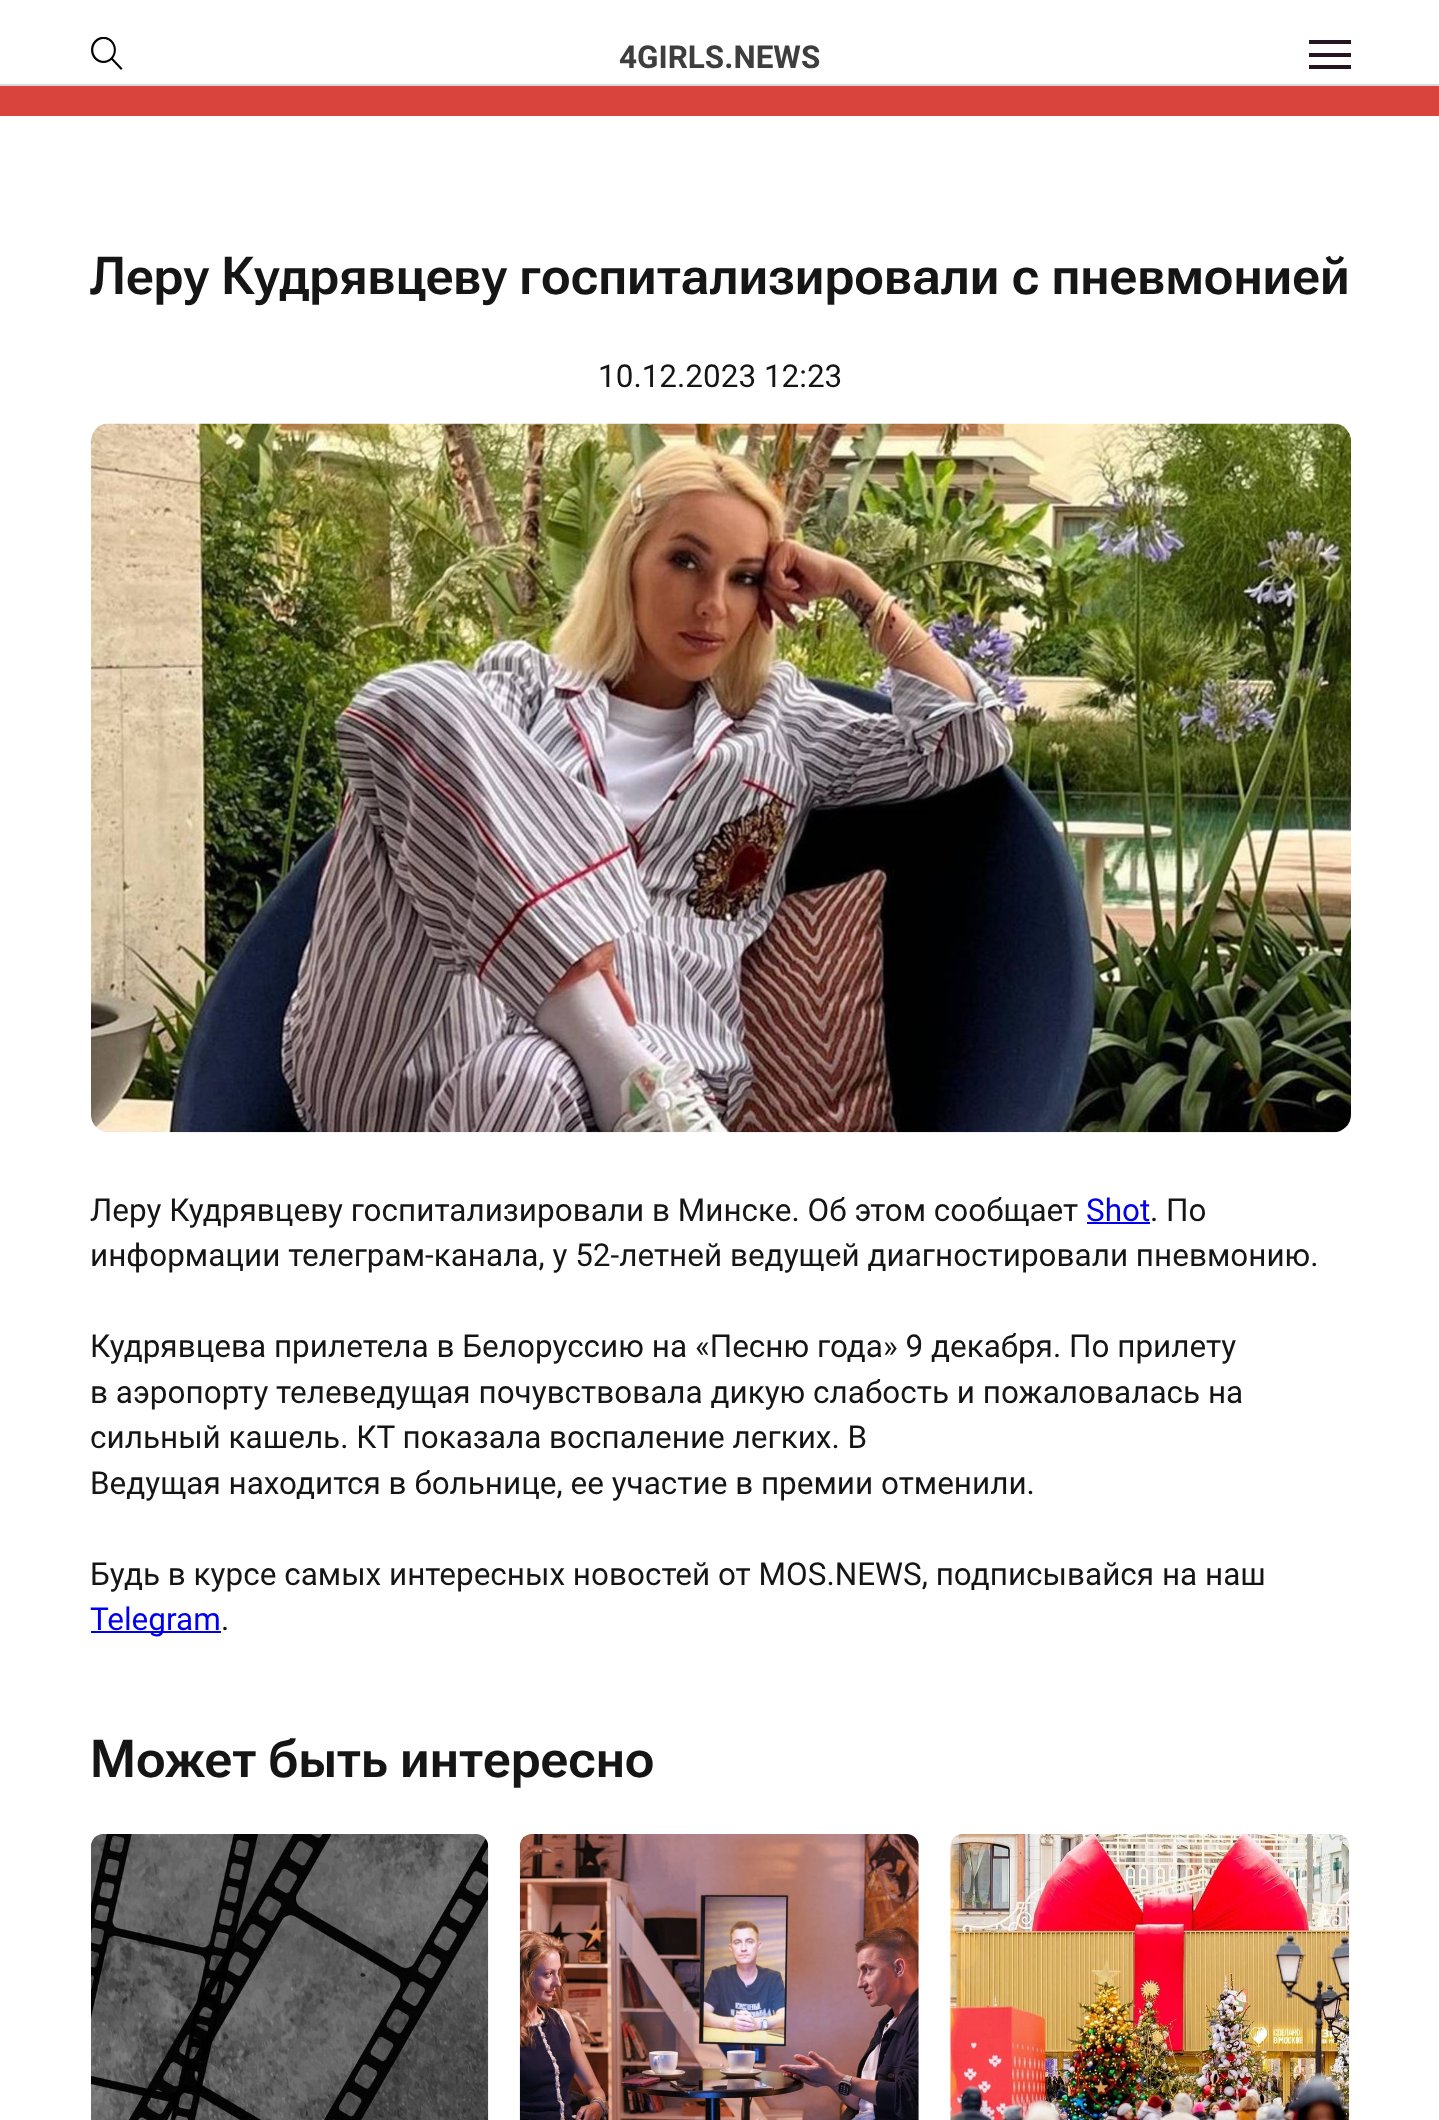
(async () => {
const canvas = document.querySelector("canvas")
canvas.width = 1439
canvas.height = 2120
const c = canvas.getContext("2d")
c.miterLimit = 4
c.fontKerning = "normal"
function T(s,x,y){c.fillText(s,x,y)}
function R(x,y,w,h){c.fillRect(x,y,w,h)}
async function I(src,x,y,w,h){const img=new Image();img.src=src;await img.decode();c.drawImage(img,x,y,w,h)}
c.fillStyle="#fff"
R(0,0,1439,2120)
c.fillStyle="#d9d9d9"
R(0,84,1439,2)
await I("1.png",91,37,32,33)
c.font="bold 31.5px Roboto"
c.fillStyle="#3e3e3e"
T("4GIRLS.NEWS",619,68)
c.fillStyle="#261421"
R(1309,53,42,4)
R(1309,40,42,4)
R(1309,65,42,4)
c.font="600 52.5px Roboto Flex"
c.fillStyle="#151515"
T("Леру Кудрявцеву госпитализировали с пневмонией",90,294)
c.font="31.5px Roboto"
T("10.12.2023 12:23",598,387)
await I("2.png",91,423,1260,710)
T("Леру Кудрявцеву госпитализировали в Минске. Об этом сообщает",90,1221)
c.fillStyle="#00e"
T("Shot",1086,1221)
R(1087,1222,63,2)
c.fillStyle="#151515"
T(". По",1150,1221)
T("информации телеграм-канала, у 52-летней ведущей диагностировали пневмонию.",90,1266)
T("Кудрявцева прилетела в Белоруссию на «Песню года» 9 декабря. По прилету",90,1357)
T("в аэропорту телеведущая почувствовала дикую слабость и пожаловалась на",90,1403)
T("сильный кашель. КТ показала воспаление легких. В",90,1448)
T("Ведущая находится в больнице, ее участие в премии отменили.",90,1494)
T("Будь в курсе самых интересных новостей от MOS.NEWS, подписывайся на наш",90,1585)
c.fillStyle="#00e"
R(91,1631,130,2)
T("Telegram",90,1630)
c.fillStyle="#151515"
T(".",221,1630)
c.font="600 52.5px Roboto Flex"
T("Может быть интересно",90,1777)
await I("3.png",91,1834,398,286)
await I("4.png",519,1834,400,286)
await I("5.png",950,1834,400,286)
c.fillStyle="#d9443d"
R(0,86,1439,30)
})()
